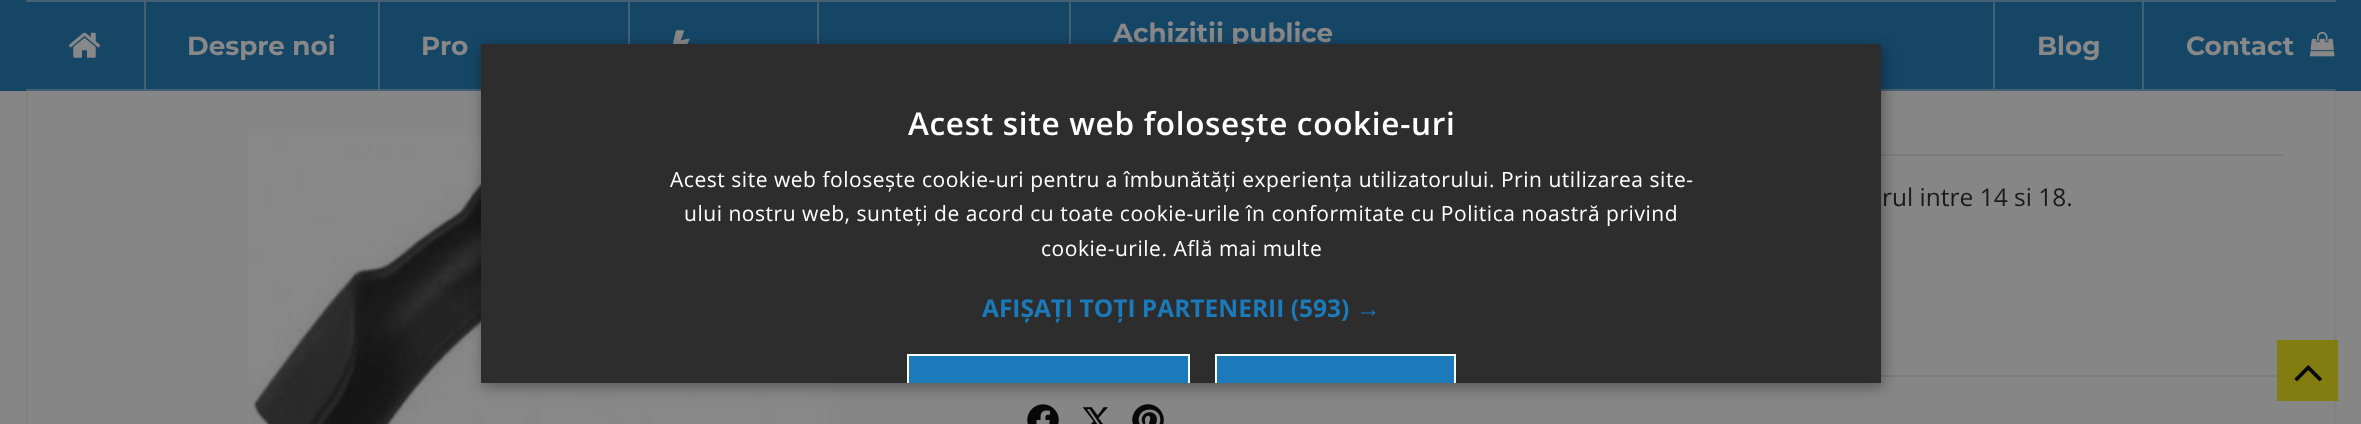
(async () => {
const canvas = document.querySelector("canvas")
canvas.width = 2361
canvas.height = 424
const c = canvas.getContext("2d")
c.miterLimit = 4
c.fontKerning = "normal"
function T(s,x,y){c.fillText(s,x,y)}
function R(x,y,w,h){c.fillRect(x,y,w,h)}
async function I(src,x,y,w,h){const img=new Image();img.src=src;await img.decode();c.drawImage(img,x,y,w,h)}
c.fillStyle="#868686"
R(0,0,2361,424)
c.strokeStyle="#818181"
c.lineWidth=2
c.strokeRect(27,-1,2308,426)
c.fillStyle="#164666"
R(0,0,2361,91)
c.fillStyle="#446074"
R(26,0,2310,2)
R(26,89,2310,2)
await I("1.png",68,32,33,26)
R(144,2,2,87)
c.font="bold 26.25px Montserrat"
c.fillStyle="#888"
T("Despre noi",187,55)
c.fillStyle="#446074"
R(378,2,2,87)
c.fillStyle="#888"
T("Pro",421,55)
c.fillStyle="#446074"
R(628,2,2,42)
await I("2.png",672,30,18,14)
R(817,2,2,42)
R(1069,2,2,42)
c.fillStyle="#888"
T("Achiziții publice",1113,42)
c.fillStyle="#446074"
R(1993,2,2,87)
c.fillStyle="#888"
T("Blog",2037,55)
c.fillStyle="#446074"
R(2142,2,2,87)
c.fillStyle="#888"
T("Contact",2186,55)
await I("3.png",2310,31,25,26)
await I("4.png",248,135,585,289)
c.fillStyle="#7c7c7c"
R(1881,154,403,2)
c.font="24.5px Open Sans"
c.fillStyle="#1a1a1a"
T("rul intre 14 si 18.",1882,206)
c.fillStyle="#7c7c7c"
R(1881,375,403,2)
await I("5.png",1027,404,32,20)
await I("6.png",1082,407,26,17)
await I("7.png",1132,404,32,20)
c.fillStyle="#00000059"
c.filter="blur(7px)"
c.beginPath()
c.rect(483,47,1400,340)
c.fill()
c.filter="none"
c.fillStyle="#2d2d2d"
R(481,44,1400,339)
c.letterSpacing="0.7px"
c.font="600 31.5px Open Sans"
c.fillStyle="#fff"
T("Acest site web folosește cookie-uri",908,135)
c.letterSpacing="0.53px"
c.font="21px Open Sans"
T("Acest site web folosește cookie-uri pentru a îmbunătăți experiența utilizatorului. Prin utilizarea site-",670,187)
T("ului nostru web, sunteți de acord cu toate cookie-urile în conformitate cu Politica noastră privind",684,221)
T("cookie-urile. Află mai multe",1041,256)
c.letterSpacing="0px"
c.font="bold 24.5px Open Sans"
c.fillStyle="#1a7aba"
T("AFIȘAȚI TOȚI PARTENERII (593)",982,317)
c.font="bold 24.5px Liberation Sans"
T("→",1356,317)
R(909,356,279,27)
c.save()
c.beginPath()
c.rect(481,44,1400,339)
c.clip()
c.strokeStyle="#fff"
c.strokeRect(908,355,281,64)
c.restore()
R(1217,356,237,27)
c.save()
c.beginPath()
c.rect(481,44,1400,339)
c.clip()
c.strokeStyle="#fff"
c.strokeRect(1216,355,239,64)
c.restore()
c.fillStyle="#837c10"
R(2277,340,61,61)
await I("8.png",2294,365,28,17)
})()
